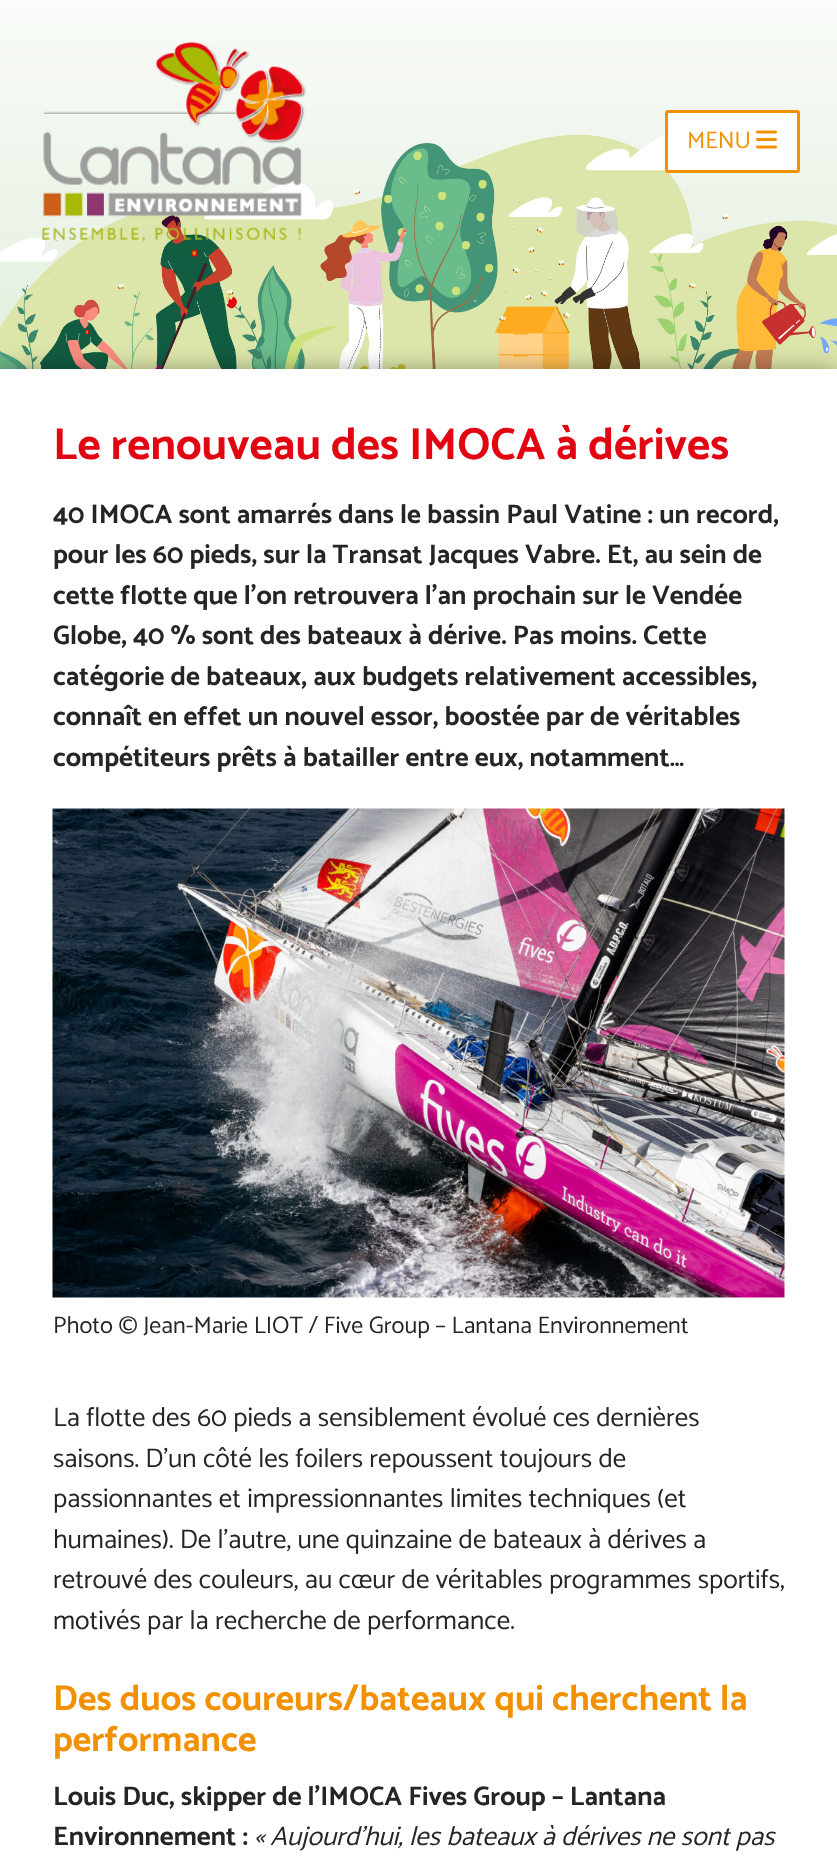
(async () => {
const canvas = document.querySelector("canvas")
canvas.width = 837
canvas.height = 1869
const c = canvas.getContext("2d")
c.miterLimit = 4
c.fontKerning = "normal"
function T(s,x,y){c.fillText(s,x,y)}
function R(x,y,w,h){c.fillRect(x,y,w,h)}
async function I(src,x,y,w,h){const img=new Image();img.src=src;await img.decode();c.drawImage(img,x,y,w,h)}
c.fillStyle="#fff"
R(0,0,837,1869)
await I("1.png",0,0,837,369)
await I("2.png",42,42,264,200)
c.beginPath()
c.roundRect(666.5,111.5,132,60,1.5)
c.fill()
c.strokeStyle="#f29100"
c.lineWidth=3
c.stroke()
c.font="24px Catamaran"
c.fillStyle="#f29100"
T("MENU",687,148)
await I("3.png",756,130,21,19)
c.fillStyle="#00000054"
c.filter="blur(11px)"
c.beginPath()
c.rect(0,369,837,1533)
c.fill()
c.filter="none"
c.fillStyle="#fff"
R(0,369,837,1500)
c.font="bold 45px Catamaran"
c.fillStyle="#e20613"
T("Le renouveau des IMOCA à dérives",53,459)
c.font="bold 27px Catamaran"
c.fillStyle="#252525"
T("40 IMOCA sont amarrés dans le bassin Paul Vatine : un record,",53,523)
T("pour les 60 pieds, sur la Transat Jacques Vabre. Et, au sein de",53,563)
T("cette flotte que l’on retrouvera l’an prochain sur le Vendée",53,604)
T("Globe, 40 % sont des bateaux à dérive. Pas moins. Cette",53,644)
T("catégorie de bateaux, aux budgets relativement accessibles,",53,685)
T("connaît en effet un nouvel essor, boostée par de véritables",53,725)
T("compétiteurs prêts à batailler entre eux, notamment…",53,766)
await I("4.png",52,808,733,490)
c.font="24px Catamaran"
T("Photo © Jean-Marie LIOT / Five Group – Lantana Environnement",53,1333)
c.font="27px Catamaran"
T("La flotte des 60 pieds a sensiblement évolué ces dernières",53,1426)
T("saisons. D’un côté les foilers repoussent toujours de",53,1467)
T("passionnantes et impressionnantes limites techniques (et",53,1507)
T("humaines). De l’autre, une quinzaine de bateaux à dérives a",53,1548)
T("retrouvé des couleurs, au cœur de véritables programmes sportifs,",53,1588)
T("motivés par la recherche de performance.",53,1629)
c.font="bold 36px Catamaran"
c.fillStyle="#f29100"
T("Des duos coureurs/bateaux qui cherchent la",53,1710)
T("performance",53,1751)
c.font="bold 27px Catamaran"
c.fillStyle="#252525"
T("Louis Duc, skipper de l’IMOCA Fives Group – Lantana",53,1805)
T("Environnement :",53,1845)
c.font="italic 27px Catamaran"
T("« Aujourd’hui, les bateaux à dérives ne sont pas",254,1845)
})()
